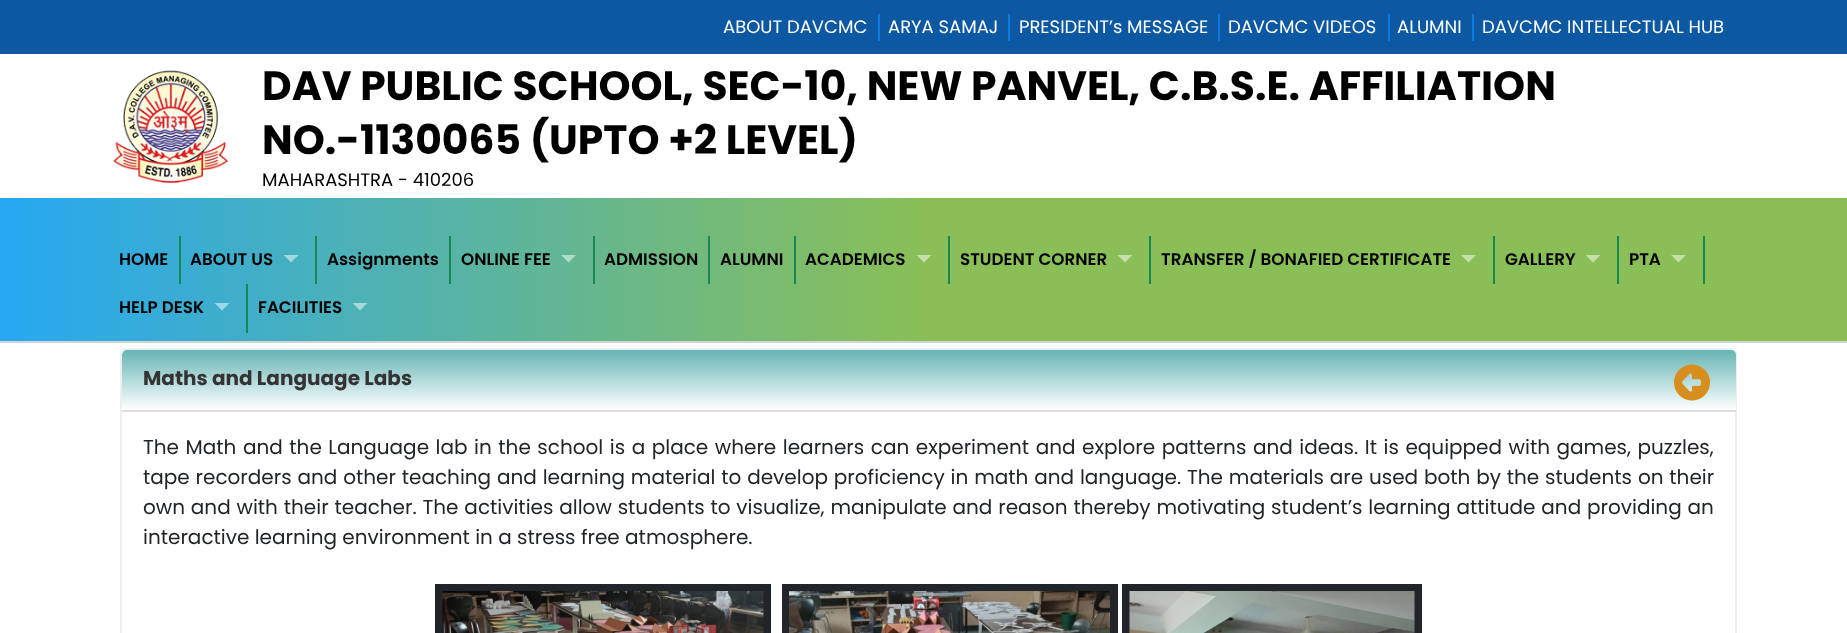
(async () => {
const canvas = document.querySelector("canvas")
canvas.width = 1847
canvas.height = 633
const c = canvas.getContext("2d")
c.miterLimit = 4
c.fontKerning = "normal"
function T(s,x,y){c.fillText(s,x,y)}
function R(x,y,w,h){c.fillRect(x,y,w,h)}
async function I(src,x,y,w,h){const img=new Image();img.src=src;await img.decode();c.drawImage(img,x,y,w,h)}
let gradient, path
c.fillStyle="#fff"
R(0,0,1847,633)
c.fillStyle="#0c58a2"
R(0,0,1847,54)
c.fillStyle="#087ae1"
R(878,14,2,27)
c.font="18px Poppins"
c.fillStyle="#fff"
T("ABOUT DAVCMC",723,33)
c.fillStyle="#087ae1"
R(1008,14,2,27)
c.fillStyle="#fff"
T("ARYA SAMAJ",888,33)
c.fillStyle="#087ae1"
R(1218,14,2,27)
c.fillStyle="#fff"
T("PRESIDENT’s MESSAGE",1019,33)
c.fillStyle="#087ae1"
R(1388,14,2,27)
c.fillStyle="#fff"
T("DAVCMC VIDEOS",1228,33)
c.fillStyle="#087ae1"
R(1472,14,2,27)
c.fillStyle="#fff"
T("ALUMNI",1397,33)
T("DAVCMC INTELLECTUAL HUB",1482,33)
await I("1.png",113,70,116,113)
c.font="bold 40.8px Poppins"
c.fillStyle="#000"
T("DAV PUBLIC SCHOOL, SEC-10, NEW PANVEL, C.B.S.E. AFFILIATION",262,100)
T("NO.-1130065 (UPTO +2 LEVEL)",262,154)
c.font="18px Poppins"
T("MAHARASHTRA - 410206",262,186)
gradient = c.createLinearGradient(0,269,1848,269)
gradient.addColorStop(0,"#26a8f2")
gradient.addColorStop(.5,"#8abf57")
c.fillStyle = gradient
R(0,198,1847,143)
c.fillStyle="#d3d3d4"
R(0,341,1847,2)
c.fillStyle="#198754"
R(179,236,2,48)
c.font="600 16.75px Poppins"
c.fillStyle="#000"
T("HOME",119,265)
c.fillStyle="#198754"
R(315,236,2,48)
c.fillStyle="#000"
T("ABOUT US",190,265)
c.fillStyle="#a2d7e0"
path = new Path2D("M283.5 255h15l-7.5 7.5z")
c.fill(path)
c.fillStyle="#198754"
R(449,236,2,48)
c.fillStyle="#000"
T("Assignments",327,265)
c.fillStyle="#198754"
R(593,236,2,48)
c.fillStyle="#000"
T("ONLINE FEE",461,265)
c.fillStyle="#b1dbc9"
path = new Path2D("M561 255h15l-7.5 7.5z")
c.fill(path)
c.fillStyle="#198754"
R(708,236,2,48)
c.fillStyle="#000"
T("ADMISSION",604,265)
c.fillStyle="#198754"
R(794,236,2,48)
c.fillStyle="#000"
T("ALUMNI",720,265)
c.fillStyle="#198754"
R(948,236,2,48)
c.fillStyle="#000"
T("ACADEMICS",805,265)
c.fillStyle="#c4dfab"
path = new Path2D("M916.5 255h15l-7.5 7.5z")
c.fill(path)
c.fillStyle="#198754"
R(1149,236,2,48)
c.fillStyle="#000"
T("STUDENT CORNER",960,265)
c.fillStyle="#c5dfab"
path = new Path2D("M1117.5 255h15l-7.5 7.5z")
c.fill(path)
c.fillStyle="#198754"
R(1493,236,2,48)
c.fillStyle="#000"
T("TRANSFER / BONAFIED CERTIFICATE",1161,265)
c.fillStyle="#c5dfab"
path = new Path2D("M1461 255h15l-7.5 7.5z")
c.fill(path)
c.fillStyle="#198754"
R(1617,236,2,48)
c.fillStyle="#000"
T("GALLERY",1505,265)
c.fillStyle="#c5dfab"
path = new Path2D("M1585.5 255h15l-7.5 7.5z")
c.fill(path)
c.fillStyle="#198754"
R(1703,236,2,48)
c.fillStyle="#000"
T("PTA",1629,265)
c.fillStyle="#c5dfab"
path = new Path2D("M1671 255h15l-7.5 7.5z")
c.fill(path)
c.fillStyle="#198754"
R(246,284,2,49)
c.fillStyle="#000"
T("HELP DESK",119,313)
c.fillStyle="#9fd6e6"
path = new Path2D("M214.5 303h15l-7.5 7.5z")
c.fill(path)
c.fillStyle="#000"
T("FACILITIES",258,313)
c.fillStyle="#a6d8da"
path = new Path2D("M352.5 303h15l-7.5 7.5z")
c.fill(path)
c.beginPath()
c.roundRect(121,349,1615,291,5)
c.strokeStyle="#eee"
c.lineWidth=2
c.stroke()
gradient = c.createLinearGradient(929,349,929,410)
gradient.addColorStop(0,"#64b3b4")
gradient.addColorStop(1,"#fff")
c.fillStyle = gradient
c.beginPath()
c.roundRect(122,350,1614,60,[5,5,0,0])
c.fill()
c.fillStyle="#ddd"
R(122,410,1614,2)
c.font="bold 20px Poppins"
c.fillStyle="#333"
T("Maths and Language Labs",143,385)
await I("2.png",1674,364,36,37)
c.wordSpacing="1.2px"
c.font="20px Poppins"
c.fillStyle="#212529"
T("The Math and the Language lab in the school is a place where learners can experiment and explore patterns and ideas. It is equipped with games, puzzles,",143,454)
c.wordSpacing="0.5px"
T("tape recorders and other teaching and learning material to develop proficiency in math and language. The materials are used both by the students on their",143,484)
T("own and with their teacher. The activities allow students to visualize, manipulate and reason thereby motivating student’s learning attitude and providing an",143,514)
c.wordSpacing="0px"
T("interactive learning environment in a stress free atmosphere.",143,544)
c.strokeStyle="#212529"
c.lineWidth=8
c.strokeRect(439,588,328,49)
c.strokeRect(786,588,328,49)
c.strokeRect(1126,588,292,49)
await I("3.png",442,591,322,42)
await I("4.png",789,591,321,42)
await I("5.png",1129,591,286,42)
})()
